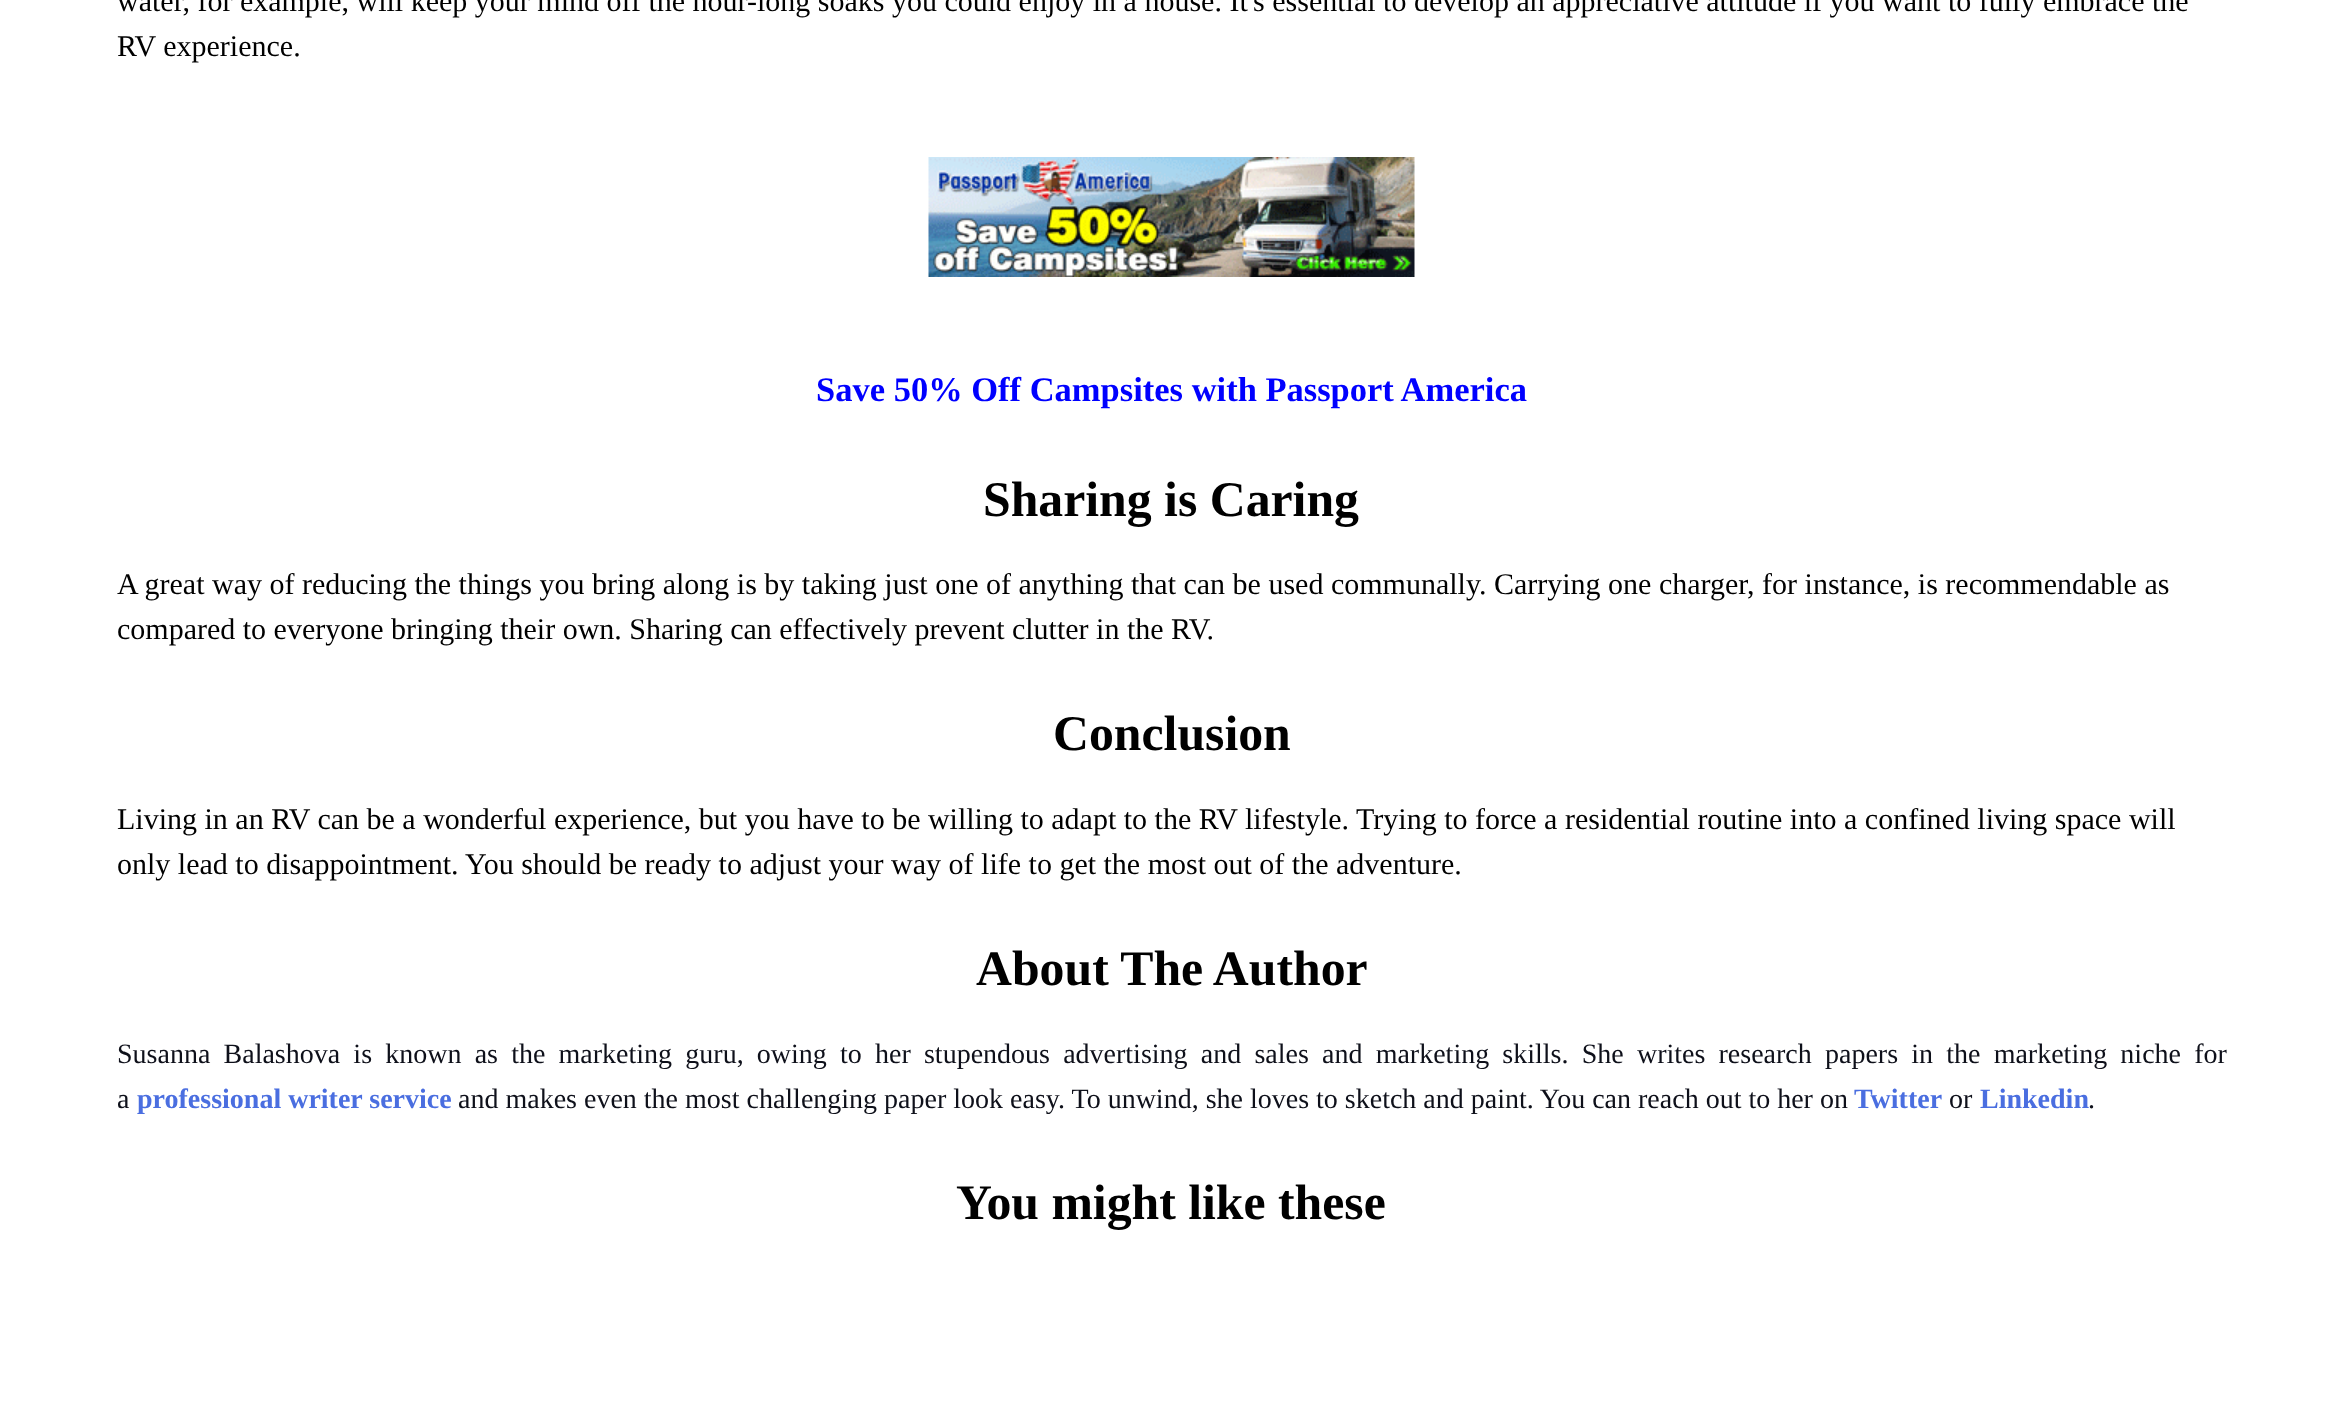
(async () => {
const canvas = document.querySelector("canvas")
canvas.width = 2343
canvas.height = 1410
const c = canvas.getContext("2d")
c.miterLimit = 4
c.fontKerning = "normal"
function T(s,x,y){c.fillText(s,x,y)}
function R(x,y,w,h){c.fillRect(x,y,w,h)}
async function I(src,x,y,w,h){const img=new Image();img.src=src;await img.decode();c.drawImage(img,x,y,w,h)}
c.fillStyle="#fff"
R(0,0,2343,1410)
c.font="30px Liberation Serif"
c.fillStyle="#000"
T("water, for example, will keep your mind off the hour-long soaks you could enjoy in a house. It's essential to develop an appreciative attitude if you want to fully embrace the",117,11)
T("RV experience.",117,56)
await I("1.png",928,157,487,120)
c.font="bold 34.5px Liberation Serif"
c.fillStyle="#00f"
T("Save 50% Off Campsites with Passport America",816,401)
c.font="bold 49.75px Liberation Serif"
c.fillStyle="#000"
T("Sharing is Caring",983,516)
c.font="30px Liberation Serif"
T("A great way of reducing the things you bring along is by taking just one of anything that can be used communally. Carrying one charger, for instance, is recommendable as",117,594)
T("compared to everyone bringing their own. Sharing can effectively prevent clutter in the RV.",117,639)
c.font="bold 49.75px Liberation Serif"
T("Conclusion",1053,750)
c.font="30px Liberation Serif"
T("Living in an RV can be a wonderful experience, but you have to be willing to adapt to the RV lifestyle. Trying to force a residential routine into a confined living space will",117,829)
T("only lead to disappointment. You should be ready to adjust your way of life to get the most out of the adventure.",117,874)
c.font="bold 49.75px Liberation Serif"
T("About The Author",976,985)
c.wordSpacing="6.2px"
c.font="28px Liberation Serif"
c.fillStyle="#0e101a"
T("Susanna Balashova is known as the marketing guru, owing to her stupendous advertising and sales and marketing skills. She writes research papers in the marketing niche for",117,1063)
c.wordSpacing="0px"
T("a",117,1108)
c.font="bold 28px Liberation Serif"
c.fillStyle="#4a6ee0"
T("professional writer service",137,1108)
c.font="28px Liberation Serif"
c.fillStyle="#0e101a"
T("and makes even the most challenging paper look easy. To unwind, she loves to sketch and paint. You can reach out to her on",458,1108)
c.font="bold 28px Liberation Serif"
c.fillStyle="#4a6ee0"
T("Twitter",1854,1108)
c.font="28px Liberation Serif"
c.fillStyle="#0e101a"
T("or",1949,1108)
c.font="bold 28px Liberation Serif"
c.fillStyle="#4a6ee0"
T("Linkedin",1980,1108)
c.font="28px Liberation Serif"
c.fillStyle="#0e101a"
T(".",2088,1108)
c.font="bold 49.75px Liberation Serif"
c.fillStyle="#000"
T("You might like these",956,1219)
})()
